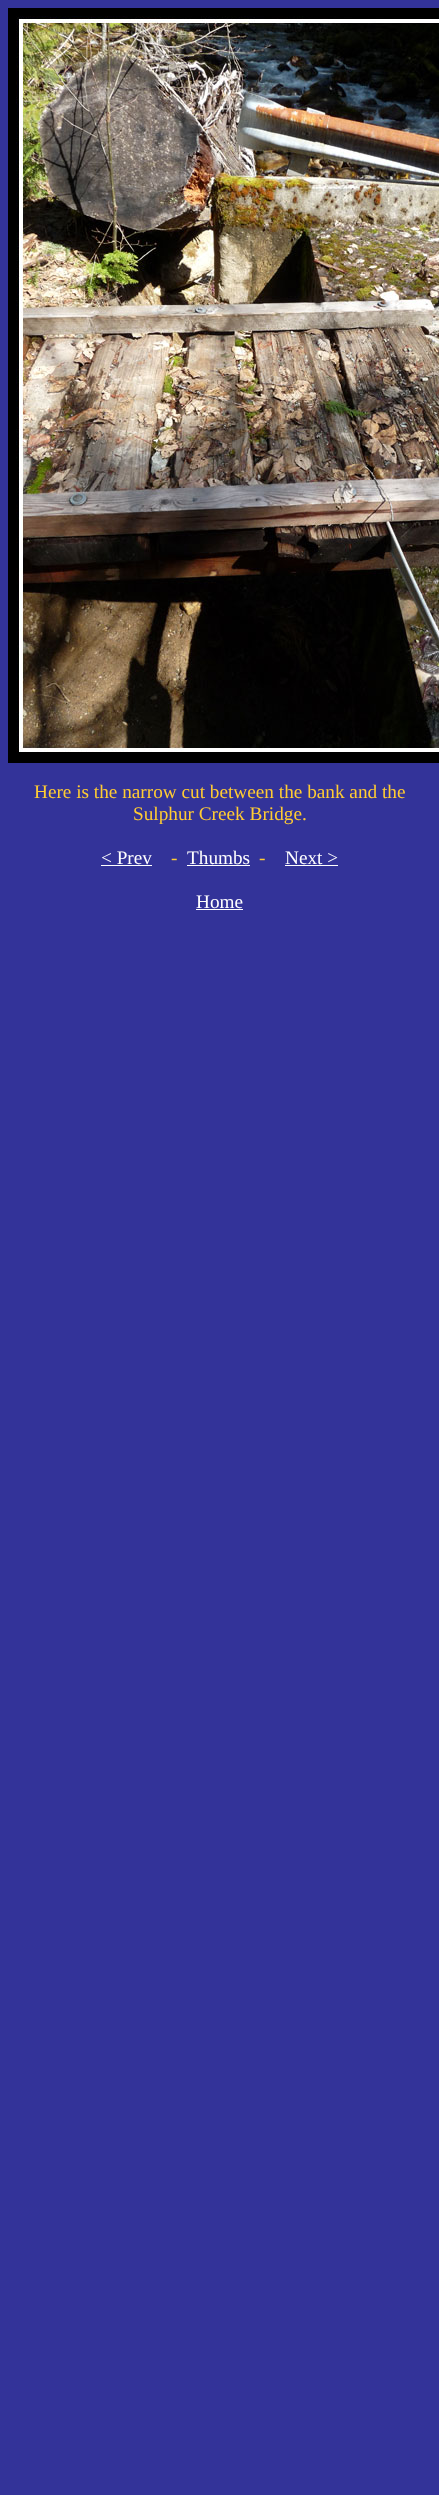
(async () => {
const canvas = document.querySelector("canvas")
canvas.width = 439
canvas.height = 2495
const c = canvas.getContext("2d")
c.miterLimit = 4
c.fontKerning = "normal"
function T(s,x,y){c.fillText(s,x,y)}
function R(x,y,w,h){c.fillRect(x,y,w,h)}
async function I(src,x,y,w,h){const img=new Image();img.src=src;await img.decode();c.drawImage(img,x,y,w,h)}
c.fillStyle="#339"
R(0,0,439,2495)
await I("1.png",8,8,431,755)
c.font="19.25px Liberation Serif"
c.fillStyle="#fc3"
T("Here is the narrow cut between the bank and the",34,798)
T("Sulphur Creek Bridge.",133,820)
c.fillStyle="#fff"
T("< Prev",101,864)
R(101,865,51,1)
c.fillStyle="#fc3"
T("-",171,864)
c.fillStyle="#fff"
T("Thumbs",187,864)
R(187,865,63,1)
c.fillStyle="#fc3"
T("-",259,864)
c.fillStyle="#fff"
T("Next >",285,864)
R(285,865,53,1)
T("Home",196,908)
R(196,909,47,1)
})()
